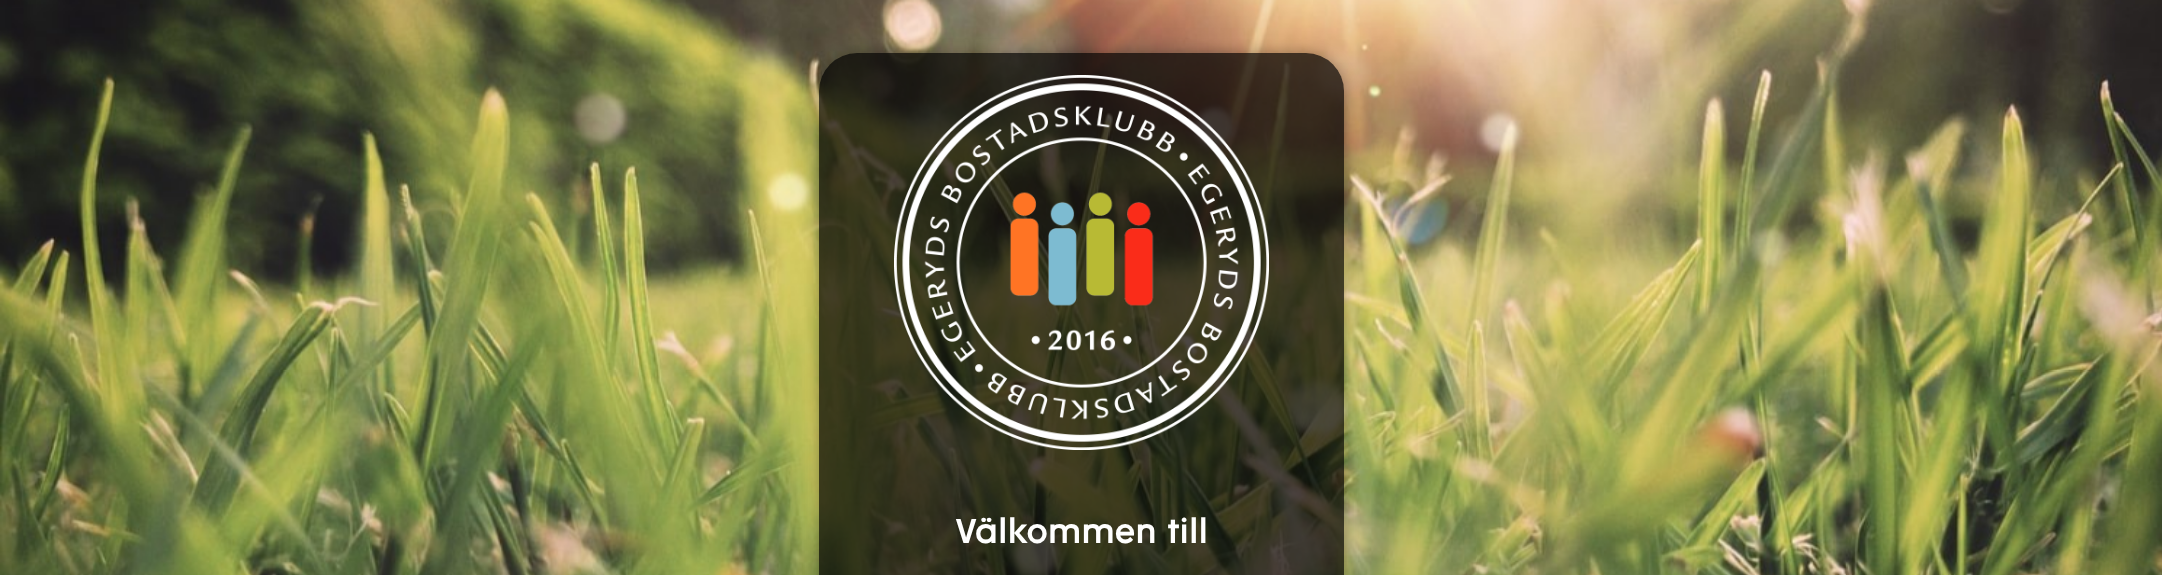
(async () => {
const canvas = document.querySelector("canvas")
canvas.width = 2162
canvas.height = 575
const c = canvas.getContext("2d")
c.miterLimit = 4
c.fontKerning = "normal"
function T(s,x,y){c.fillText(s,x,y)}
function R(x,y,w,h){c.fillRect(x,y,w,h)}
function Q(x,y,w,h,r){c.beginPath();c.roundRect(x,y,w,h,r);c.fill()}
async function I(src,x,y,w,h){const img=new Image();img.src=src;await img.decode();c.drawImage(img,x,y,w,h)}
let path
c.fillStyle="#fff"
R(0,0,2162,575)
await I("1.png",0,0,2162,575)
c.save()
path = new Path2D("M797 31h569v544h-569zm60 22h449c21 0 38 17 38 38v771c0 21-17 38-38 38h-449c-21 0-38-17-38-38v-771c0-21 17-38 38-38z")
c.clip(path,"evenodd")
c.fillStyle="#0000004d"
c.filter="blur(7px)"
c.beginPath()
c.roundRect(819,53,525,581,38)
c.fill()
c.filter="none"
c.restore()
c.fillStyle="#000000b3"
Q(819,53,525,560,38)
await I("2.png",894,75,375,375)
c.font="bold 36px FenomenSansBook"
c.fillStyle="#fff"
T("Välkommen till",956,543)
})()
